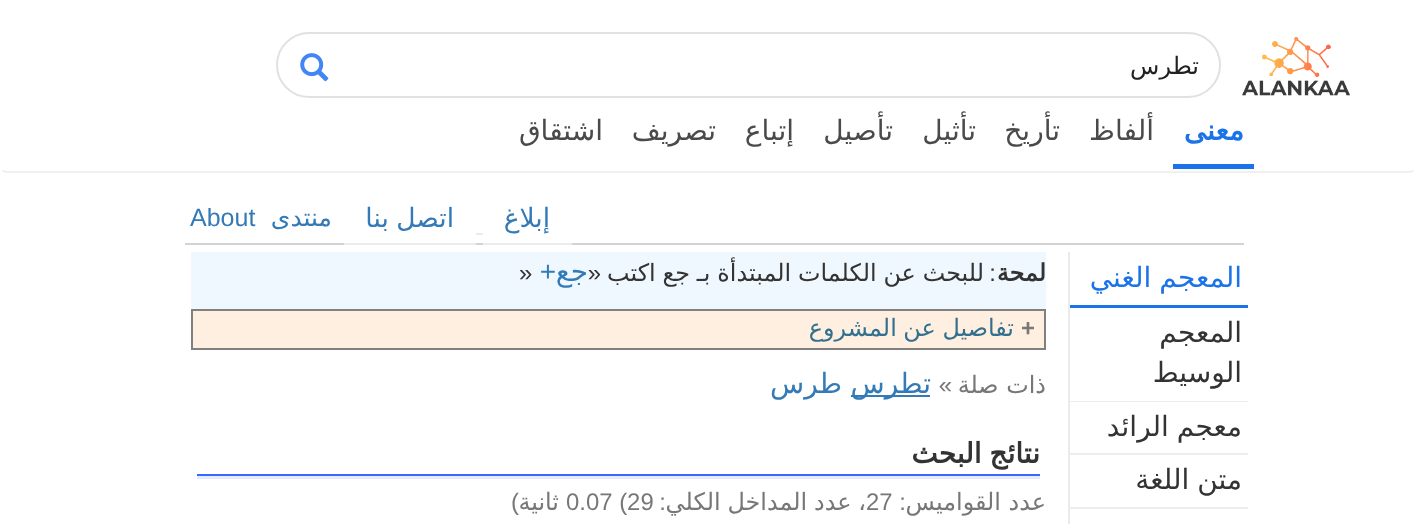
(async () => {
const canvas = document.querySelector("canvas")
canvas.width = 1415
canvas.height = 524
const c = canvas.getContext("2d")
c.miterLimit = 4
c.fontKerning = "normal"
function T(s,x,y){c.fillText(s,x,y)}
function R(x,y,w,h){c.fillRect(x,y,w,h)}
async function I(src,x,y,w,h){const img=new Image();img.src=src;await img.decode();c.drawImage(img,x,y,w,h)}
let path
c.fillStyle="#fff"
R(0,0,1415,524)
await I("1.png",1242,36,108,60)
c.beginPath()
c.roundRect(277,33,943,64,32)
c.strokeStyle="#dfe1e5"
c.lineWidth=2
c.stroke()
c.direction="rtl"
c.font="24px DejaVu Sans"
c.fillStyle="#212121"
T("تطرس",1199,74)
await I("2.png",300,53,29,29)
path = new Path2D("M1413.5 170c-1 1-2 2-3.5 2h-1404c-1.5 0-2.5-1-3.5-2")
c.strokeStyle="#ebebeb"
c.lineWidth=1.5
c.stroke(path)
c.fillStyle="#1a73e8"
R(1173,164,81,5)
c.font="bold 28px DejaVu Sans"
T("معنى",1244,140)
c.font="28px DejaVu Sans"
c.fillStyle="#4a4a4a"
T("ألفاظ",1154,140)
T("تأريخ",1060,140)
T("تأثيل",976,140)
T("تأصيل",893,140)
T("إتباع",794,140)
T("تصريف",716,140)
T("اشتقاق",603,140)
c.fillStyle="#d3d3d3"
R(185,243,1059,2)
c.fillStyle="#ebebeb"
R(344,243,132,2)
R(476,233,7,2)
R(483,243,89,2)
c.font="26.5px DejaVu Sans"
c.fillStyle="#337ab7"
T("إبلاغ",550,227)
c.wordSpacing="-1px"
T("اتصل بنا",454,227)
c.wordSpacing="0px"
c.font="25px DejaVu Sans"
T("منتدى",332,226)
c.direction="ltr"
c.font="25px Liberation Sans"
T("About",190,226)
c.fillStyle="#ebebeb"
R(1068,252,2,272)
c.fillStyle="#1a73e8"
R(1070,305,178,3)
c.wordSpacing="-1px"
c.direction="rtl"
c.font="28px DejaVu Sans"
T("المعجم الغني",1242,287)
c.fillStyle="#ededed"
R(1070,401,178,1)
c.wordSpacing="0px"
c.fillStyle="#333"
T("المعجم",1242,342)
T("الوسيط",1242,382)
c.fillStyle="#ededed"
R(1070,453,178,2)
c.wordSpacing="-1px"
c.fillStyle="#333"
T("معجم الرائد",1242,436)
c.fillStyle="#ededed"
R(1070,507,178,2)
c.fillStyle="#333"
T("متن اللغة",1242,489)
c.fillStyle="#f0f8ff"
R(191,252,855,57)
c.wordSpacing="0px"
c.font="bold 23.9px DejaVu Sans"
c.fillStyle="#333"
T("لمحة",1046,281)
c.font="23.9px Liberation Sans"
T(":",996,281)
c.wordSpacing="-0.75px"
c.font="23.9px DejaVu Sans"
T("للبحث عن الكلمات المبتدأة بـ جع اكتب",984,281)
c.wordSpacing="0px"
c.font="23.9px Liberation Sans"
T("«",601,281)
c.font="28px DejaVu Sans"
c.fillStyle="#337ab7"
T("جع",588,281)
c.font="28px Liberation Sans"
T("+",556,281)
c.direction="ltr"
c.font="23.9px Liberation Sans"
c.fillStyle="#333"
T("»",519,281)
c.fillStyle="#ffefe0"
c.beginPath()
c.rect(192,310,853,39)
c.fill()
c.strokeStyle="#808080"
c.lineWidth=2
c.stroke()
c.font="bold 23.9px Liberation Sans"
c.fillStyle="#777"
T("+",1021,336)
c.wordSpacing="-1px"
c.direction="rtl"
c.font="23.9px DejaVu Sans"
c.fillStyle="#31708f"
T("تفاصيل عن المشروع",1014,336)
c.wordSpacing="0px"
c.fillStyle="#777"
T("ذات صلة",1046,393)
c.font="23.9px Liberation Sans"
T("»",952,393)
c.fillStyle="#337ab7"
R(851,395,79,2)
c.font="28px DejaVu Sans"
T("تطرس",931,393)
T("طرس",842,393)
c.fillStyle="#e5ebff"
path = new Path2D("M197 476v3h843v-41v38z")
c.fill(path)
c.fillStyle="#3b66ff"
R(197,474,843,2)
c.wordSpacing="-1px"
c.font="bold 28px DejaVu Sans"
c.fillStyle="#333"
T("نتائج البحث",1040,463)
c.wordSpacing="0px"
c.font="23.9px DejaVu Sans"
c.fillStyle="#777"
T("عدد القواميس",1046,510)
c.font="23.9px Liberation Sans"
T(":",906,510)
c.direction="ltr"
T("27",866,510)
c.wordSpacing="-0.75px"
c.direction="rtl"
c.font="23.9px DejaVu Sans"
T("، عدد المداخل الكلي",866,510)
c.wordSpacing="0px"
c.font="23.9px Liberation Sans"
T(":",666,510)
c.direction="ltr"
T("0.07 (29",566,510)
c.direction="rtl"
c.font="23.9px DejaVu Sans"
T("ثانية",559,510)
c.font="23.9px Liberation Sans"
T(")",519,510)
})()
